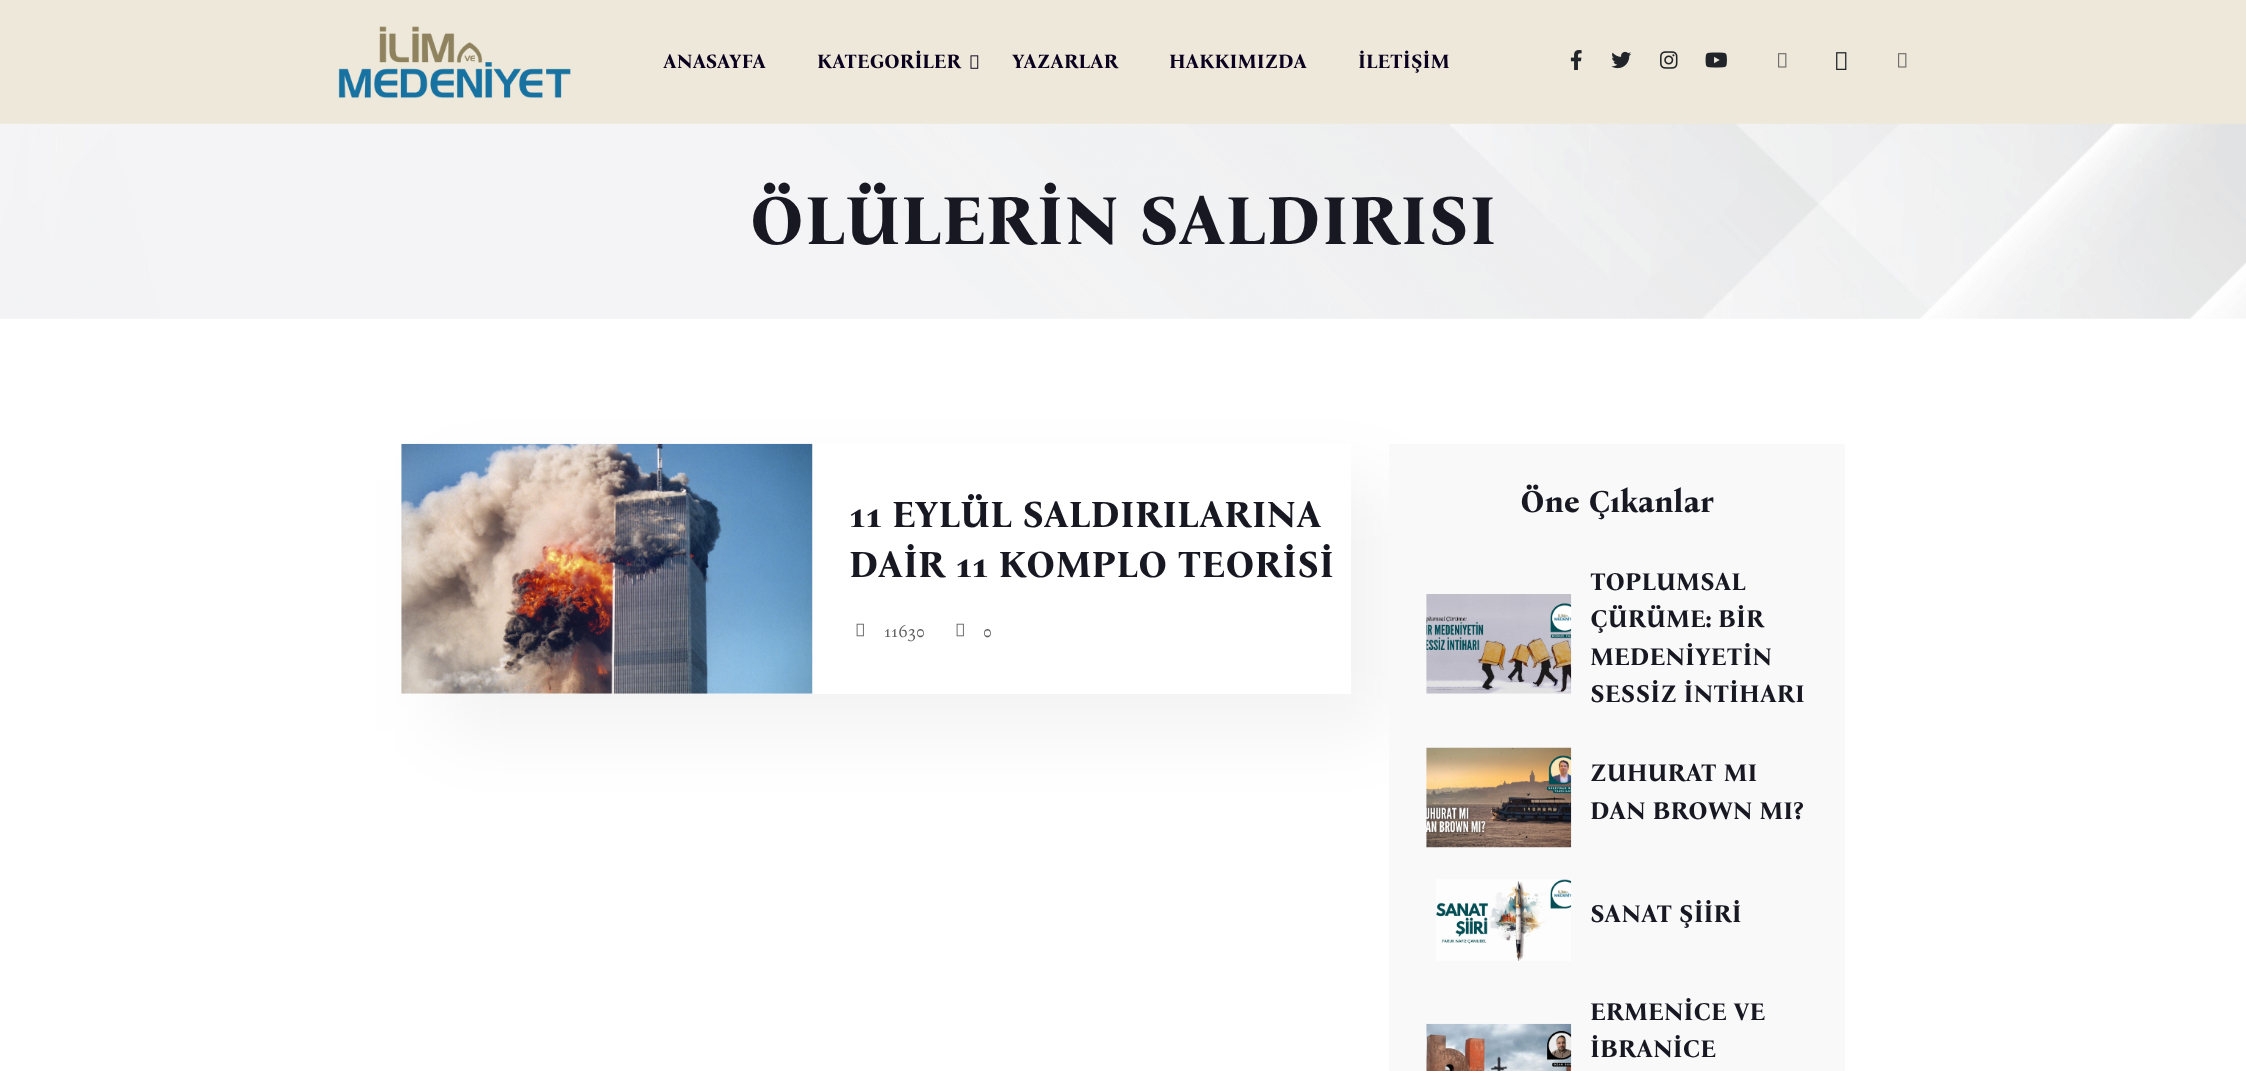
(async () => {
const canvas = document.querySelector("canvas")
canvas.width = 2246
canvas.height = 1071
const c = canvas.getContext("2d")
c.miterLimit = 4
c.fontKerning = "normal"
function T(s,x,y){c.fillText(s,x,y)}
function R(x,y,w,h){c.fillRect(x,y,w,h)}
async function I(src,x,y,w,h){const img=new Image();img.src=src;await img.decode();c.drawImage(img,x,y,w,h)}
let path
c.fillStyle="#fff"
R(0,0,2246,1071)
c.fillStyle="#ede8d9"
R(0,0,2246,124)
await I("1.png",338,26,233,72)
c.font="bold 20px Bona Nova"
c.fillStyle="#0a001f"
T("ANASAYFA",663,68)
T("KATEGORİLER",817,68)
await I("2.png",970,55,9,14)
T("YAZARLAR",1012,68)
T("HAKKIMIZDA",1169,68)
T("İLETİŞİM",1358,68)
await I("3.png",1570,50,12,20)
await I("4.png",1611,51,21,18)
await I("5.png",1660,51,18,18)
await I("6.png",1705,52,22,16)
await I("7.png",1778,53,9,15)
await I("8.png",1836,52,11,18)
await I("7.png",1898,53,9,15)
await I("9.png",0,123,2246,196)
c.font="bold 70px Bona Nova"
c.fillStyle="#181823"
T("ÖLÜLERİN SALDIRISI",749,244)
c.save()
path = new Path2D("M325 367h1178v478h-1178zm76 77h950v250h-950z")
c.clip(path,"evenodd")
c.fillStyle="#0000010d"
c.filter="blur(37.5px)"
c.beginPath()
c.rect(439,481,950,250)
c.fill()
c.filter="none"
c.restore()
await I("10.png",401,443,412,251)
c.font="bold 37.5px Bona Nova"
T("11 EYLÜL SALDIRILARINA",849,527)
T("DAİR 11 KOMPLO TEORİSİ",849,577)
await I("11.png",856,623,8,14)
c.font="17.5px Bona Nova"
c.fillStyle="#5e5e5e"
T("11630",884,637)
await I("11.png",956,623,8,14)
T("0",983,637)
c.fillStyle="#f9f9f9"
R(1389,444,456,627)
c.font="bold 31.25px Bona Nova"
c.fillStyle="#181823"
T("Öne Çıkanlar",1520,512)
await I("12.png",1426,594,146,100)
c.font="bold 25px Bona Nova"
T("TOPLUMSAL",1590,590)
T("ÇÜRÜME: BİR",1590,627)
T("MEDENİYETİN",1590,665)
T("SESSİZ İNTİHARI",1590,702)
await I("13.png",1426,747,146,101)
T("ZUHURAT MI",1590,781)
T("DAN BROWN MI?",1590,819)
await I("14.png",1436,879,136,82)
T("SANAT ŞİİRİ",1590,922)
await I("15.png",1426,1023,146,48)
T("ERMENİCE VE",1590,1020)
T("İBRANİCE",1590,1057)
})()
